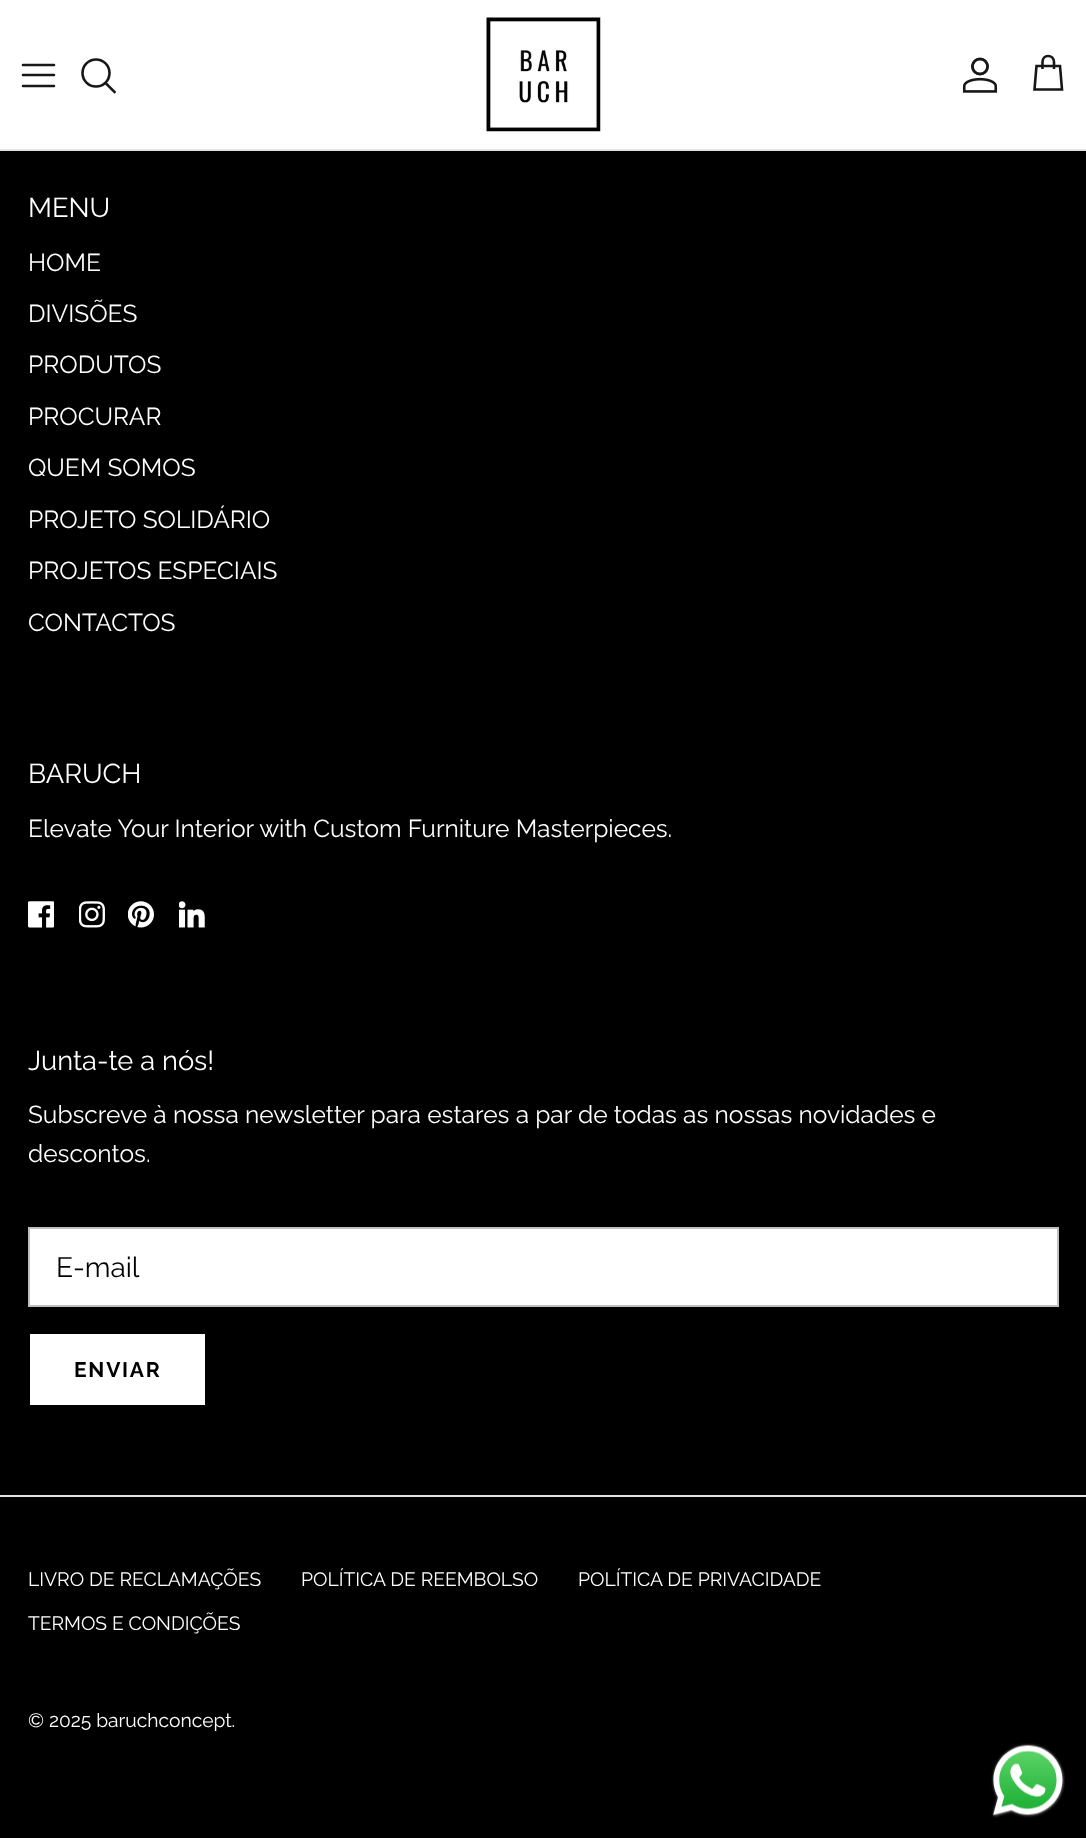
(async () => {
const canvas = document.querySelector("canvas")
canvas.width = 1086
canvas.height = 1838
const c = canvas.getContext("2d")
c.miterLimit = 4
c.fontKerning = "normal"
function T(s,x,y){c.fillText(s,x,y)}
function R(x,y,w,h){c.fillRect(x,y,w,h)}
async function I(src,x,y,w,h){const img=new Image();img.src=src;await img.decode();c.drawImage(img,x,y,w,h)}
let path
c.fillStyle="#000"
R(0,0,1086,1838)
c.fillStyle="#fff"
R(0,0,1086,149)
c.fillStyle="#e2e2e2"
R(0,149,1086,2)
path = new Path2D("M23 75h31m-31-10h31m-31 21h31")
c.strokeStyle="#171717"
c.lineWidth=2.6
c.lineCap="round"
c.lineJoin="round"
c.stroke(path)
c.beginPath()
c.arc(96,73,13.5,0,7)
c.stroke()
path = new Path2D("M106.5 84l8 8")
c.lineCap="square"
c.lineJoin="miter"
c.stroke(path)
await I("1.png",486,17,115,115)
await I("2.png",962,57,36,36)
path = new Path2D("M1054 69v-7c0-3.5-2.5-6-6-6c-3 0-5.5 2.5-5.5 6v7m-6-3h23.5l2 23.5h-27.5z")
c.lineCap="butt"
c.stroke(path)
c.font="27.25px Raleway"
c.fillStyle="#fff"
T("MENU",28,217)
c.font="24.5px Raleway"
T("HOME",28,271)
T("DIVISÕES",28,322)
T("PRODUTOS",28,373)
T("PROCURAR",28,425)
T("QUEM SOMOS",28,476)
T("PROJETO SOLIDÁRIO",28,528)
T("PROJETOS ESPECIAIS",28,579)
T("CONTACTOS",28,631)
c.font="27.25px Raleway"
T("BARUCH",28,783)
c.font="24.5px Raleway"
T("Elevate Your Interior with Custom Furniture Masterpieces.",28,837)
await I("3.png",28,901,26,27)
await I("4.png",79,901,26,27)
await I("5.png",128,901,26,27)
await I("6.png",179,901,26,27)
c.font="27.25px Raleway"
T("Junta-te a nós!",28,1070)
c.font="24.5px Raleway"
T("Subscreve à nossa newsletter para estares a par de todas as nossas novidades e",28,1123)
T("descontos.",28,1162)
c.beginPath()
c.rect(29,1228,1029,78)
c.fill()
c.strokeStyle="#bfbfbf"
c.lineWidth=2
c.stroke()
c.font="28px Raleway"
c.fillStyle="#000"
T("E-mail",56,1277)
c.fillStyle="#fff"
R(30,1334,175,71)
c.letterSpacing="1.75px"
c.font="bold 21px Raleway"
c.fillStyle="#000"
T("ENVIAR",74,1377)
c.fillStyle="#e4e4e4"
R(0,1495,1086,2)
c.letterSpacing="0px"
c.font="19.25px Raleway"
c.fillStyle="#fff"
T("LIVRO DE RECLAMAÇÕES",28,1586)
T("POLÍTICA DE REEMBOLSO",301,1586)
T("POLÍTICA DE PRIVACIDADE",578,1586)
T("TERMOS E CONDIÇÕES",28,1630)
T("© 2025 baruchconcept.",28,1727)
await I("7.png",991,1743,74,75)
})()
